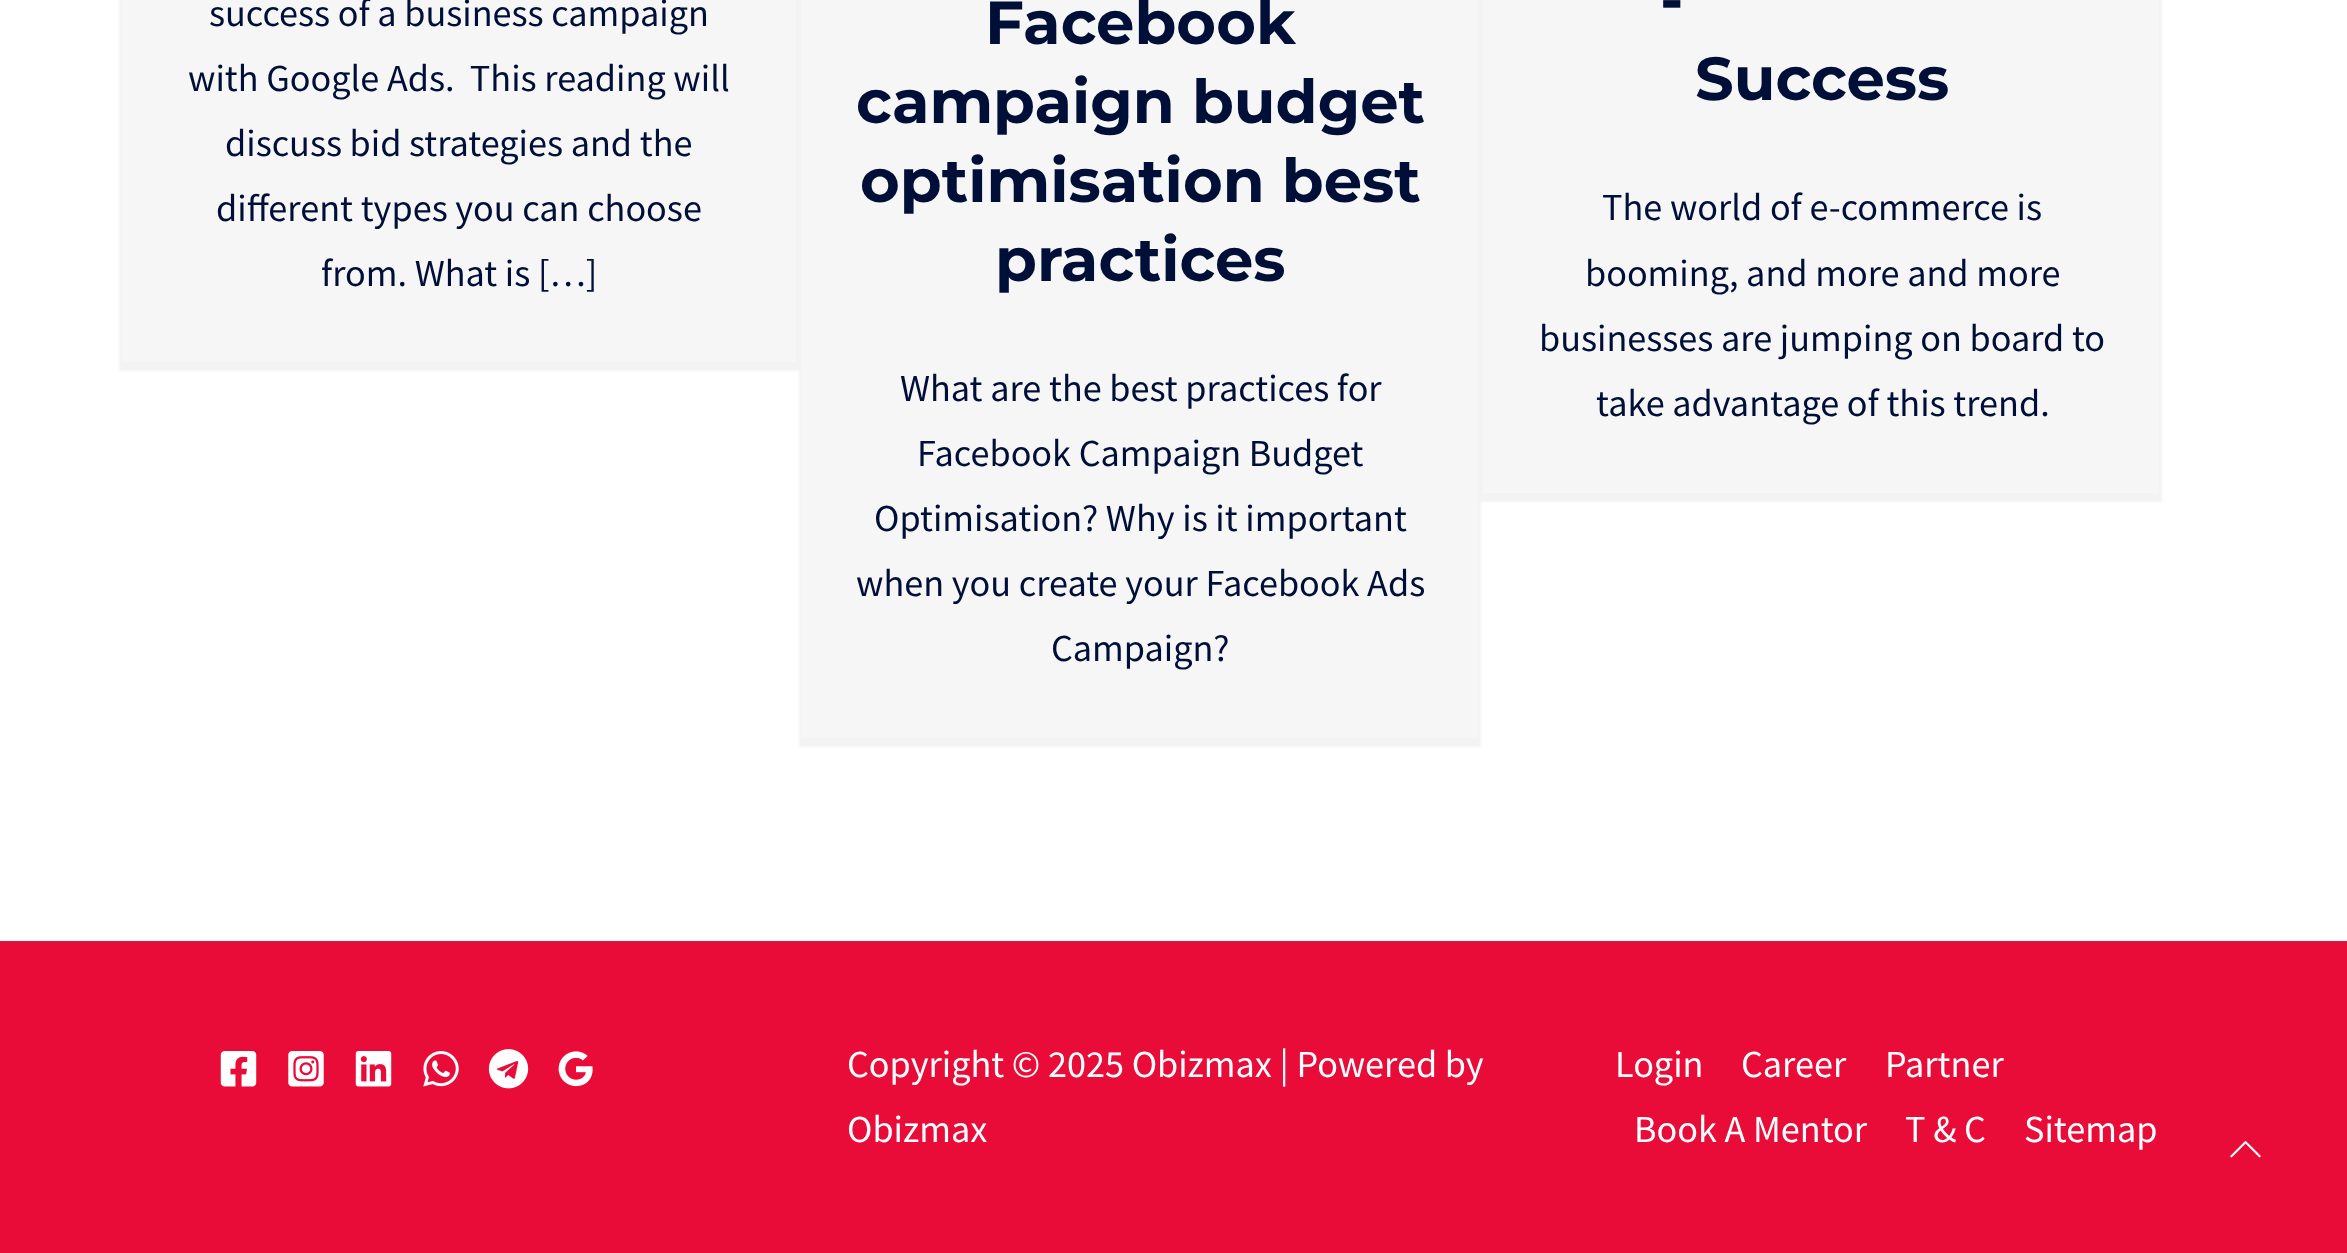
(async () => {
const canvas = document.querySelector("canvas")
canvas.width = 2347
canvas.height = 1253
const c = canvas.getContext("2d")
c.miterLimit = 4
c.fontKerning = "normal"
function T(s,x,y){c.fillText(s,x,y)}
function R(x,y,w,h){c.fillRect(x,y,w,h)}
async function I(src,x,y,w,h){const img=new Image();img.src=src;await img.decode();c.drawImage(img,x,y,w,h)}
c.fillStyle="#fff"
R(0,0,2347,1253)
c.fillStyle="#c5c5c533"
c.filter="blur(1px)"
c.beginPath()
c.rect(119,-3,680,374)
c.fill()
c.filter="none"
c.fillStyle="#f6f6f6"
R(122,0,674,362)
c.font="38.25px Source Sans Pro"
c.fillStyle="#000f38"
T("success of a business campaign",209,26)
T("with Google Ads.  This reading will",188,91)
T("discuss bid strategies and the",225,156)
T("different types you can choose",216,221)
T("from. What is […]",321,286)
c.fillStyle="#c5c5c533"
c.filter="blur(1px)"
c.beginPath()
c.rect(799,-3,682,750)
c.fill()
c.filter="none"
c.fillStyle="#f6f6f6"
R(801,0,677,738)
c.font="100 60.75px Montserrat"
c.fillStyle="#000f38"
T("Facebook",985,44)
T("campaign budget",856,123)
T("optimisation best",860,202)
T("practices",995,281)
c.font="38.25px Source Sans Pro"
T("What are the best practices for",900,401)
T("Facebook Campaign Budget",917,466)
T("Optimisation? Why is it important",874,531)
T("when you create your Facebook Ads",856,596)
T("Campaign?",1051,661)
c.fillStyle="#c5c5c533"
c.filter="blur(1px)"
c.beginPath()
c.rect(1481,-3,681,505)
c.fill()
c.filter="none"
c.fillStyle="#f6f6f6"
R(1483,0,676,493)
c.font="100 60.75px Montserrat"
c.fillStyle="#000f38"
T("-",1660,21)
T("Success",1695,100)
c.font="38.25px Source Sans Pro"
T("The world of e-commerce is",1602,220)
T("booming, and more and more",1585,286)
T("businesses are jumping on board to",1539,351)
T("take advantage of this trend.",1596,416)
c.fillStyle="#e90b38"
R(0,943,2347,310)
c.fillStyle="#d41a43"
R(0,941,2347,2)
await I("1.png",220,1051,37,36)
await I("2.png",288,1051,36,36)
await I("3.png",355,1051,37,36)
await I("4.png",423,1051,36,36)
await I("5.png",488,1049,41,40)
await I("6.png",558,1051,35,36)
c.fillStyle="#fff"
T("Copyright © 2025 Obizmax | Powered by",847,1077)
T("Obizmax",847,1142)
T("Login",1615,1077)
T("Career",1741,1077)
T("Partner",1885,1077)
T("Book A Mentor",1634,1142)
T("T & C",1905,1142)
T("Sitemap",2024,1142)
await I("7.png",2230,1141,31,17)
})()
